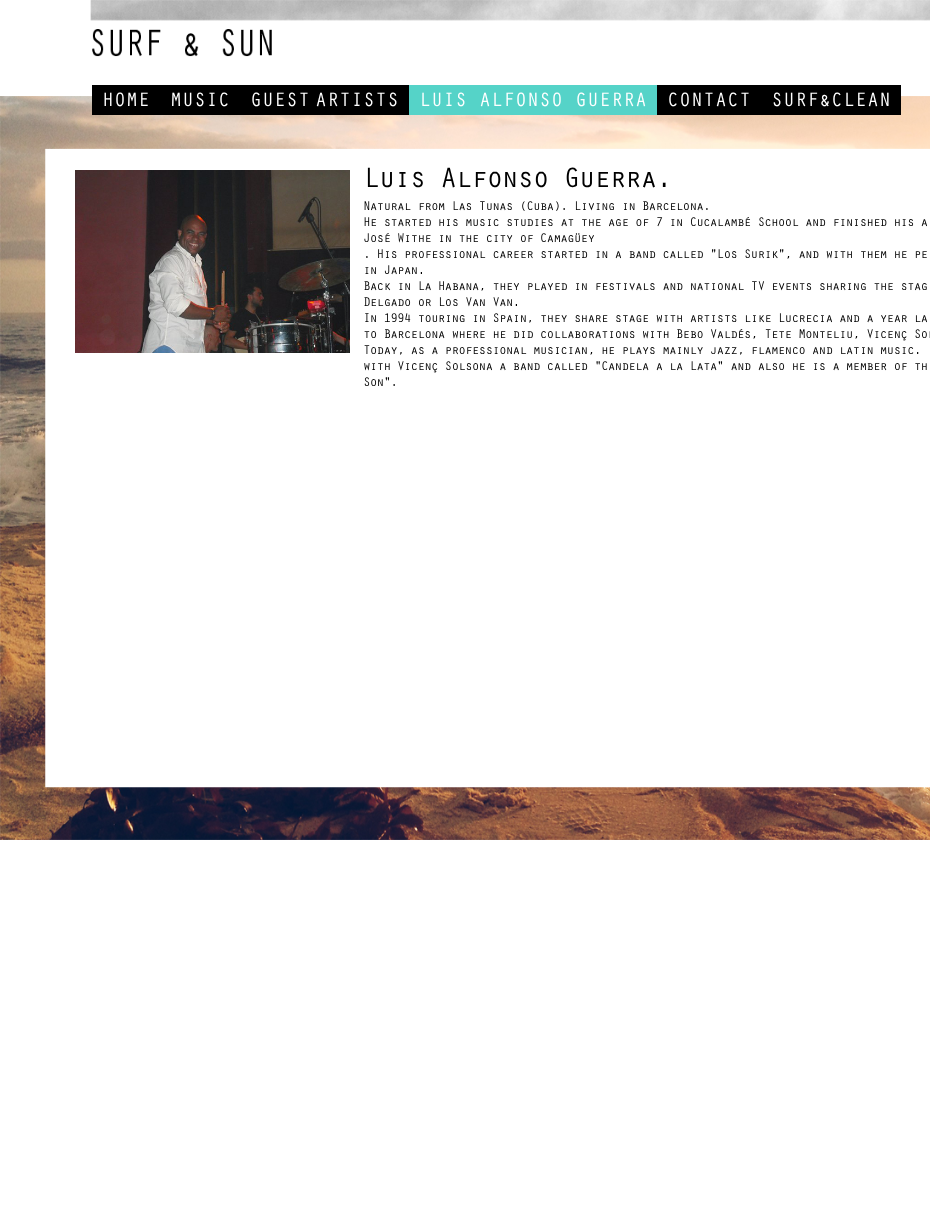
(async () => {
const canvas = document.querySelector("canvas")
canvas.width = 930
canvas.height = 1227
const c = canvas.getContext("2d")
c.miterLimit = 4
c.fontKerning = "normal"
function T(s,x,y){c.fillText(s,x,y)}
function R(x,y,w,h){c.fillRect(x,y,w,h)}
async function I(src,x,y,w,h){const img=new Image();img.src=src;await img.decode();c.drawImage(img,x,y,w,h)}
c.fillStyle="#fff"
R(0,0,930,1227)
await I("1.png",0,0,930,840)
c.fillStyle="#000"
R(92,85,809,30)
c.font="20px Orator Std"
c.fillStyle="#fff"
T("HOME",102,106)
T("MUSIC",170,106)
T("GUEST",250,106)
T("ARTISTS",315,106)
c.fillStyle="#55d3c8"
R(409,85,248,30)
c.fillStyle="#fff"
T("LUIS ALFONSO GUERRA",419,106)
T("CONTACT",667,106)
T("SURF&CLEAN",771,106)
await I("2.png",75,170,275,183)
c.letterSpacing="-2px"
c.font="29px Orator Std"
c.fillStyle="#000"
T("Luis Alfonso Guerra.",363,187)
c.letterSpacing="-1px"
c.font="13px Orator Std"
T("Natural from Las Tunas (Cuba). Living in Barcelona.",363,210)
T("He started his music studies at the age of 7 in Cucalambé School and finished his a",363,226)
T("José Withe in the city of Camagüey",363,242)
T(". His professional career started in a band called \"Los Surik\", and with them he pe",363,258)
T("in Japan.",363,274)
T("Back in La Habana, they played in festivals and national TV events sharing the stag",363,290)
T("Delgado or Los Van Van.",363,306)
T("In 1994 touring in Spain, they share stage with artists like Lucrecia and a year la",363,322)
T("to Barcelona where he did collaborations with Bebo Valdés, Tete Monteliu, Vicenç Sol",363,338)
T("Today, as a professional musician, he plays mainly jazz, flamenco and latin music.",363,354)
T("with Vicenç Solsona a band called \"Candela a la Lata\" and also he is a member of th",363,370)
T("Son\".",363,386)
})()
